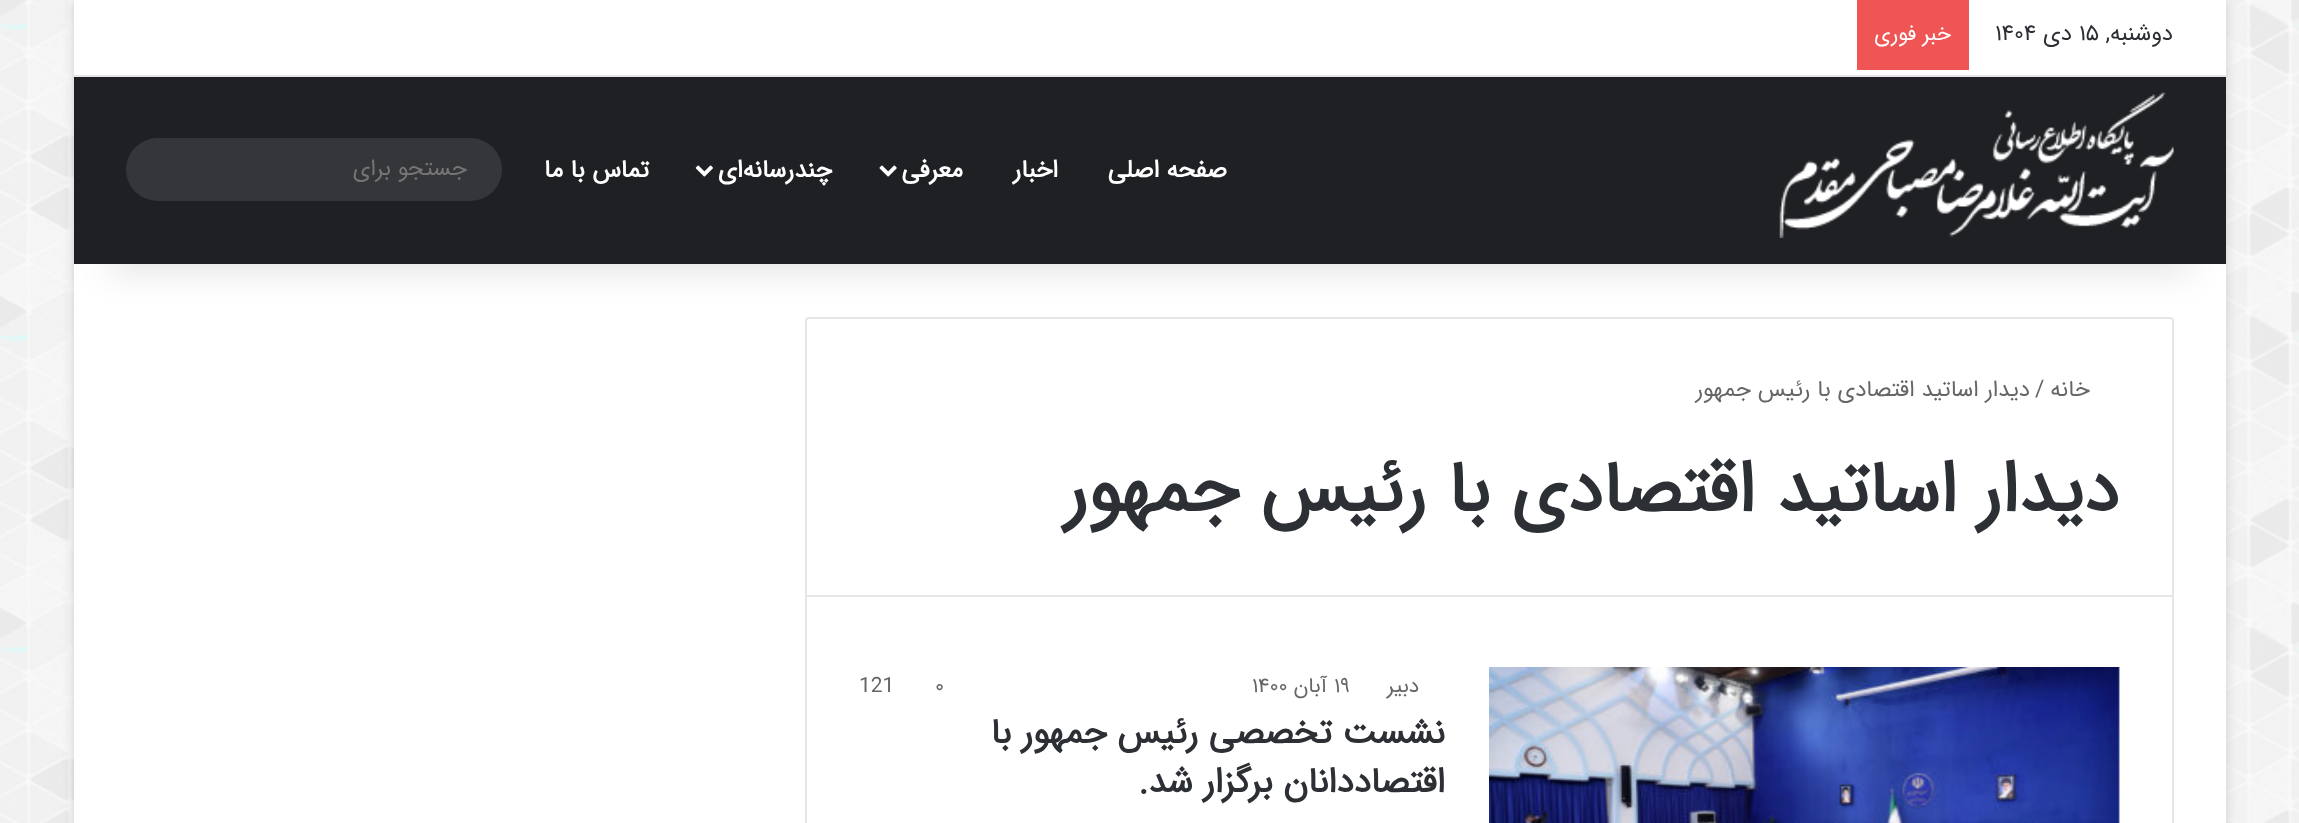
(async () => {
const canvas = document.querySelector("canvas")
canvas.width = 2299
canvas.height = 823
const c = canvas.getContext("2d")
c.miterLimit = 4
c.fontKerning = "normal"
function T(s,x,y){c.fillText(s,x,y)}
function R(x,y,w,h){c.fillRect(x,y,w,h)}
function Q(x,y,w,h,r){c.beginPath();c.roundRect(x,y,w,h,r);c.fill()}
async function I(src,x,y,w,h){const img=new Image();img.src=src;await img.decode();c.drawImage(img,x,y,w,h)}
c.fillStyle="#f7f7f7"
R(0,0,2299,823)
await I("1.png",0,0,2299,823)
c.fillStyle="#ababab80"
c.filter="blur(6px)"
c.beginPath()
c.rect(74,2,2152,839)
c.fill()
c.filter="none"
c.fillStyle="#fff"
R(74,264,2152,559)
c.beginPath()
c.roundRect(806,318,1367,278,[3,3,0,0])
c.strokeStyle="#e6e6e6"
c.lineWidth=2
c.stroke()
c.fillStyle="#0000001a"
c.filter="blur(17.5px)"
c.beginPath()
c.rect(109,79,2082,194)
c.fill()
c.filter="none"
c.fillStyle="#fff"
R(74,0,2152,75)
c.fillStyle="#e6e6e6"
R(74,75,2152,2)
c.direction="rtl"
c.font="22.75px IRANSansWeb"
c.fillStyle="#2c2f34"
T("دوشنبه,",2173,40)
c.direction="ltr"
T("۱۵",2079,40)
c.direction="rtl"
T("دی",2072,40)
c.direction="ltr"
T("۱۴۰۴",1995,40)
c.fillStyle="#f05555"
R(1857,0,112,70)
c.direction="rtl"
c.font="21px IRANSansWeb"
c.fillStyle="#fff"
T("خبر فوری",1951,40)
c.fillStyle="#1f2024"
R(74,77,2152,187)
await I("2.png",1779,92,395,146)
c.font="bold 24.5px IRANSansWeb"
c.fillStyle="#fff"
T("صفحه اصلی",1227,177)
T("اخبار",1058,177)
T("معرفی",963,177)
await I("3.png",879,165,18,12)
T("چندرسانه‌ای",832,177)
await I("4.png",695,165,18,12)
T("تماس با ما",649,177)
c.fillStyle="#35363a"
Q(126,138,376,63,31.5)
c.font="22.75px IRANSansWeb"
c.fillStyle="#757575"
T("جستجو برای",467,175)
c.fillStyle="#666"
T("خانه",2090,396)
c.direction="ltr"
T("/",2035,396)
c.direction="rtl"
T("دیدار اساتید اقتصادی با رئیس جمهور",2030,396)
c.font="bold 71.75px IRANSansWeb"
c.fillStyle="#2c2f34"
T("دیدار اساتید اقتصادی با رئیس جمهور",2119,511)
c.fillStyle="#e6e6e6"
R(2172,597,2,226)
R(805,597,2,226)
await I("5.png",1489,667,631,156)
c.font="21px IRANSansWeb"
c.fillStyle="#666"
T("دبیر",1419,692)
c.direction="ltr"
T("۱۹",1334,692)
c.direction="rtl"
T("آبان",1327,692)
c.direction="ltr"
T("۱۴۰۰",1252,692)
T("۰",935,692)
T("121",859,692)
c.direction="rtl"
c.font="bold 35px IRANSansWeb"
c.fillStyle="#2c2f34"
T("نشست تخصصی رئیس جمهور با",1445,743)
T("اقتصاددانان برگزار شد.",1445,792)
})()
